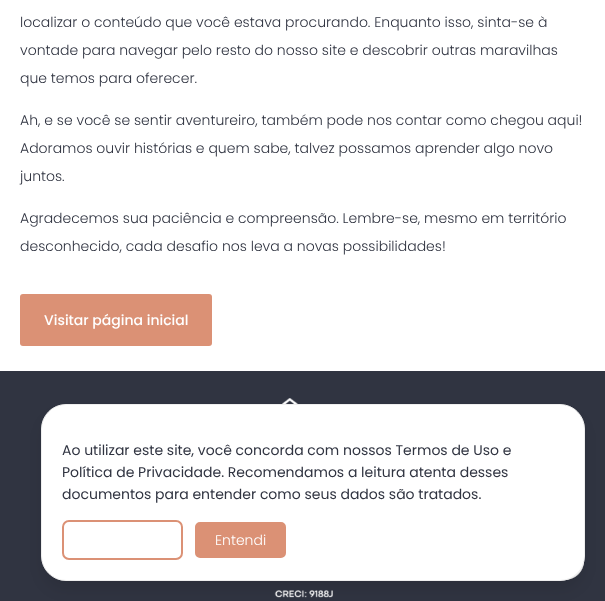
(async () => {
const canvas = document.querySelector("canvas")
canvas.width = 605
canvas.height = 601
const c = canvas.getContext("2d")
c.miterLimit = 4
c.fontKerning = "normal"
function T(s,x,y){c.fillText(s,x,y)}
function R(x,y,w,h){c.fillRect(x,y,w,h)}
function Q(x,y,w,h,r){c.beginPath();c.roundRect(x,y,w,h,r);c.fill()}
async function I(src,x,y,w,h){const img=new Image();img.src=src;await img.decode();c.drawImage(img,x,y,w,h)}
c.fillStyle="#fff"
R(0,0,605,601)
c.font="300 14px Poppins"
c.fillStyle="#303441"
T("localizar o conteúdo que você estava procurando. Enquanto isso, sinta-se à",20,27)
T("vontade para navegar pelo resto do nosso site e descobrir outras maravilhas",20,55)
T("que temos para oferecer.",20,83)
T("Ah, e se você se sentir aventureiro, também pode nos contar como chegou aqui!",20,125)
T("Adoramos ouvir histórias e quem sabe, talvez possamos aprender algo novo",20,153)
T("juntos.",20,181)
T("Agradecemos sua paciência e compreensão. Lembre-se, mesmo em território",20,223)
T("desconhecido, cada desafio nos leva a novas possibilidades!",20,251)
c.fillStyle="#db9175"
Q(20,294,192,52,3)
c.font="500 14px Poppins"
c.fillStyle="#fff"
T("Visitar página inicial",44,325)
c.fillStyle="#303441"
R(0,371,605,230)
await I("1.png",274,398,59,200)
await I("2.png",567,563,17,17)
c.fillStyle="#0000001a"
c.filter="blur(7.5px)"
c.beginPath()
c.roundRect(44,417,538,171,22)
c.fill()
c.filter="none"
c.fillStyle="#fff"
c.beginPath()
c.roundRect(41.5,404.5,543,176,24.5)
c.fill()
c.strokeStyle="#eee"
c.stroke()
c.font="14px Poppins"
c.fillStyle="#303441"
T("Ao utilizar este site, você concorda com nossos Termos de Uso e",62,455)
T("Política de Privacidade. Recomendamos a leitura atenta desses",62,477)
T("documentos para entender como seus dados são tratados.",62,499)
c.beginPath()
c.roundRect(63,521,119,38,6)
c.strokeStyle="#db9175"
c.lineWidth=2
c.stroke()
c.fillStyle="#db9175"
c.beginPath()
c.roundRect(194,521,93,38,6)
c.fill()
c.strokeStyle="#fff"
c.stroke()
c.font="300 14px Poppins"
c.fillStyle="#fff"
T("Entendi",215,545)
})()
